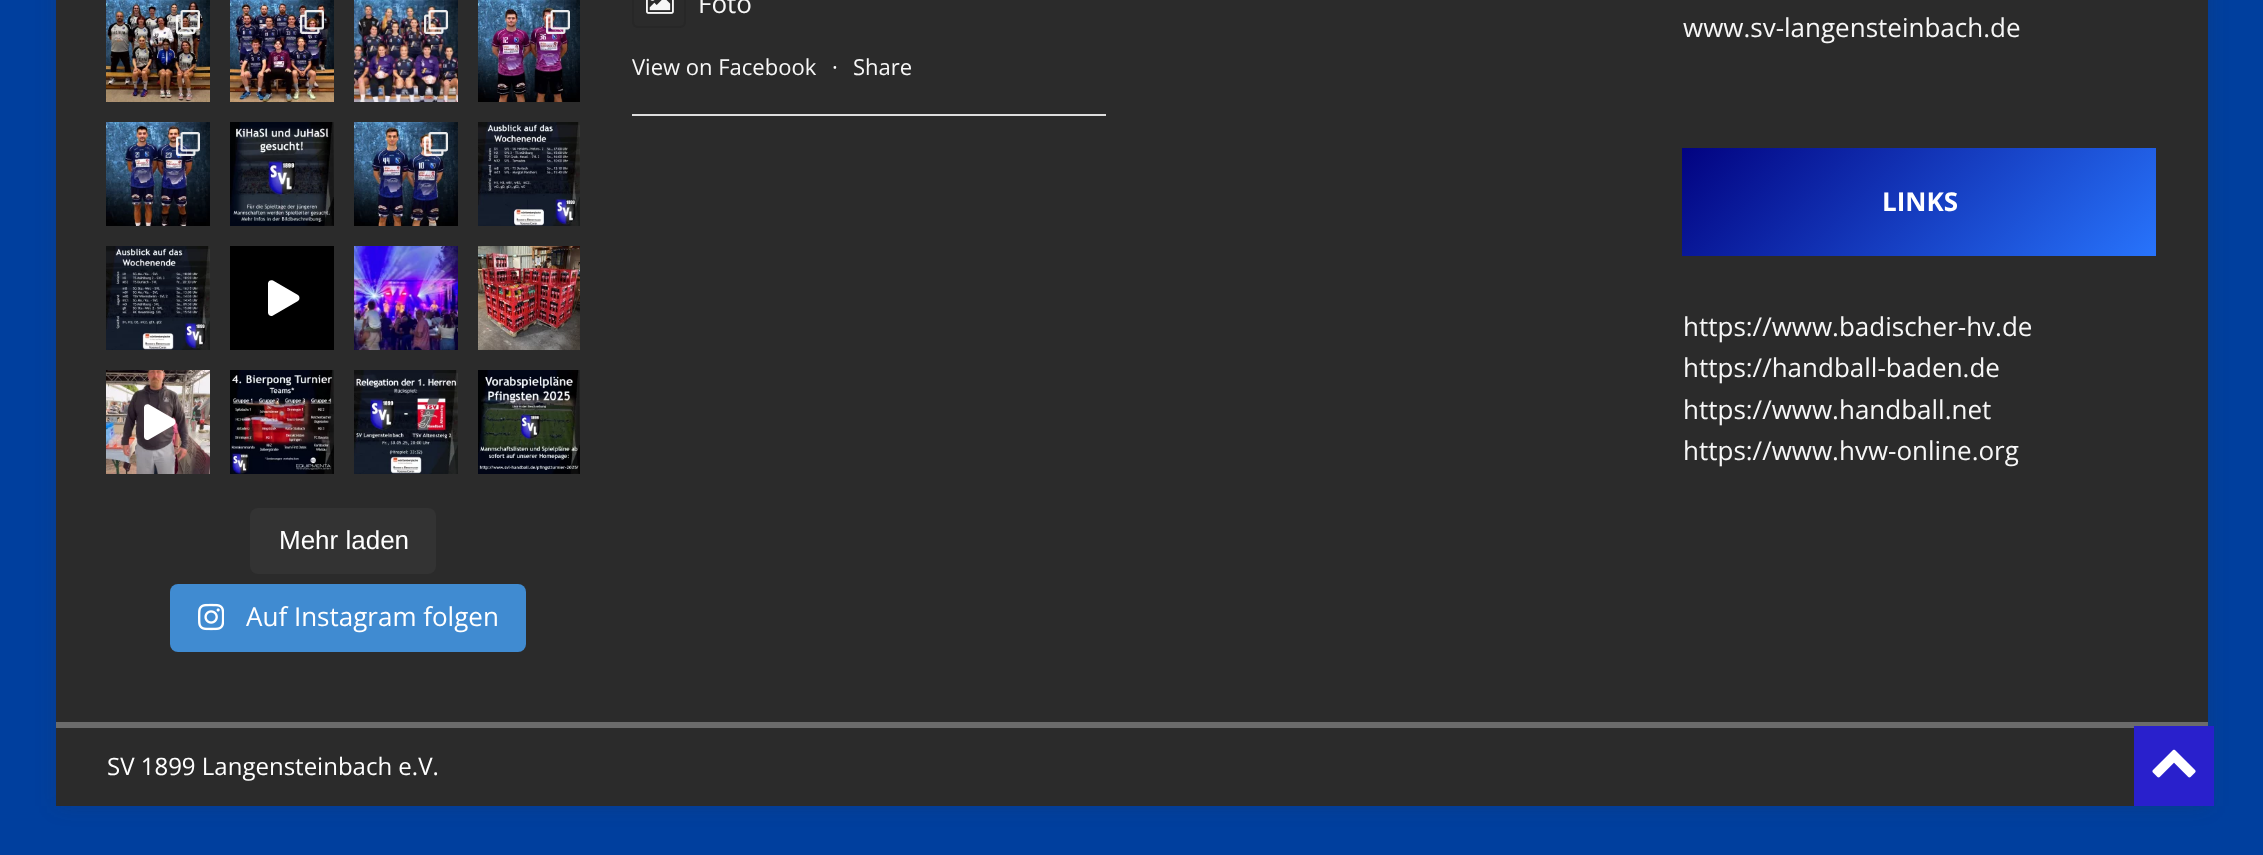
(async () => {
const canvas = document.querySelector("canvas")
canvas.width = 2263
canvas.height = 855
const c = canvas.getContext("2d")
c.miterLimit = 4
c.fontKerning = "normal"
function T(s,x,y){c.fillText(s,x,y)}
function R(x,y,w,h){c.fillRect(x,y,w,h)}
function Q(x,y,w,h,r){c.beginPath();c.roundRect(x,y,w,h,r);c.fill()}
async function I(src,x,y,w,h){const img=new Image();img.src=src;await img.decode();c.drawImage(img,x,y,w,h)}
let gradient, path
c.fillStyle="#003f9e"
R(0,0,2263,855)
c.fillStyle="#3232322b"
c.filter="blur(10px)"
c.beginPath()
c.rect(56,-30,2152,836)
c.fill()
c.filter="none"
c.fillStyle="#2b2b2b"
R(56,0,2152,722)
c.fillStyle="#ddd"
R(632,114,474,2)
c.beginPath()
c.roundRect(633,-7,52,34,5)
c.strokeStyle="#272727"
c.lineWidth=2
c.stroke()
await I("1.png",646,0,28,14)
c.font="26px Open Sans"
c.fillStyle="#f7f7f7"
T("Foto",698,13)
c.font="22px Open Sans"
T("View on Facebook",632,75)
c.fillStyle="#fff"
T("·",832,75)
c.fillStyle="#f7f7f7"
T("Share",853,75)
c.font="26px Open Sans"
T("www.sv-langensteinbach.de",1683,37)
gradient = c.createLinearGradient(1774,57,2065,348)
gradient.addColorStop(0,"#020381")
gradient.addColorStop(1,"#2874fc")
c.fillStyle = gradient
R(1682,148,474,108)
c.font="bold 26px Open Sans"
c.fillStyle="#fff"
T("LINKS",1882,211)
c.font="26px Open Sans"
c.fillStyle="#f7f7f7"
T("https://www.badischer-hv.de",1683,336)
T("https://handball-baden.de",1683,377)
T("https://www.handball.net",1683,419)
T("https://www.hvw-online.org",1683,460)
await I("2.png",106,0,104,102)
await I("3.png",176,10,24,24)
await I("4.png",230,0,104,102)
await I("5.png",300,10,24,24)
await I("6.png",354,0,104,102)
await I("7.png",424,10,24,24)
await I("8.png",478,0,102,102)
await I("9.png",546,10,24,24)
await I("10.png",106,122,104,104)
await I("11.png",176,132,24,24)
await I("12.png",230,122,104,104)
await I("13.png",354,122,104,104)
await I("14.png",424,132,24,24)
await I("15.png",478,122,102,104)
await I("16.png",106,246,104,104)
c.fillStyle="#000"
R(230,246,104,104)
c.fillStyle="#fff"
path = new Path2D("M298 295l-25-14.5c-2-1-5 0-5 3v29c0 3 3 4.5 5 3l25-14.5c2-1.5 2-4.5 0-6z")
c.fill(path)
await I("17.png",354,246,104,104)
await I("18.png",478,246,102,104)
await I("19.png",106,370,104,104)
path = new Path2D("M174 419l-25-14.5c-2-1-5 0-5 3v29c0 3 3 4.5 5 3l25-14.5c2-1.5 2-4.5 0-6z")
c.fill(path)
await I("20.png",230,370,104,104)
await I("21.png",354,370,104,104)
await I("22.png",478,370,102,104)
c.fillStyle="#333"
Q(250,508,186,66,8)
c.font="26px Liberation Sans"
c.fillStyle="#fff"
T("Mehr laden",279,549)
c.fillStyle="#408bd1"
Q(170,584,356,68,8)
await I("23.png",198,603,26,28)
c.font="26px Open Sans"
c.fillStyle="#fff"
T("Auf Instagram folgen",246,626)
c.fillStyle="#2b2b2b"
R(56,728,2078,78)
c.fillStyle="#6b6b6b"
R(56,722,2152,6)
c.font="24px Open Sans"
c.fillStyle="#fff"
T("SV 1899 Langensteinbach e.V.",107,775)
c.fillStyle="#2920cc"
R(2134,726,80,80)
await I("24.png",2152,749,44,29)
})()
